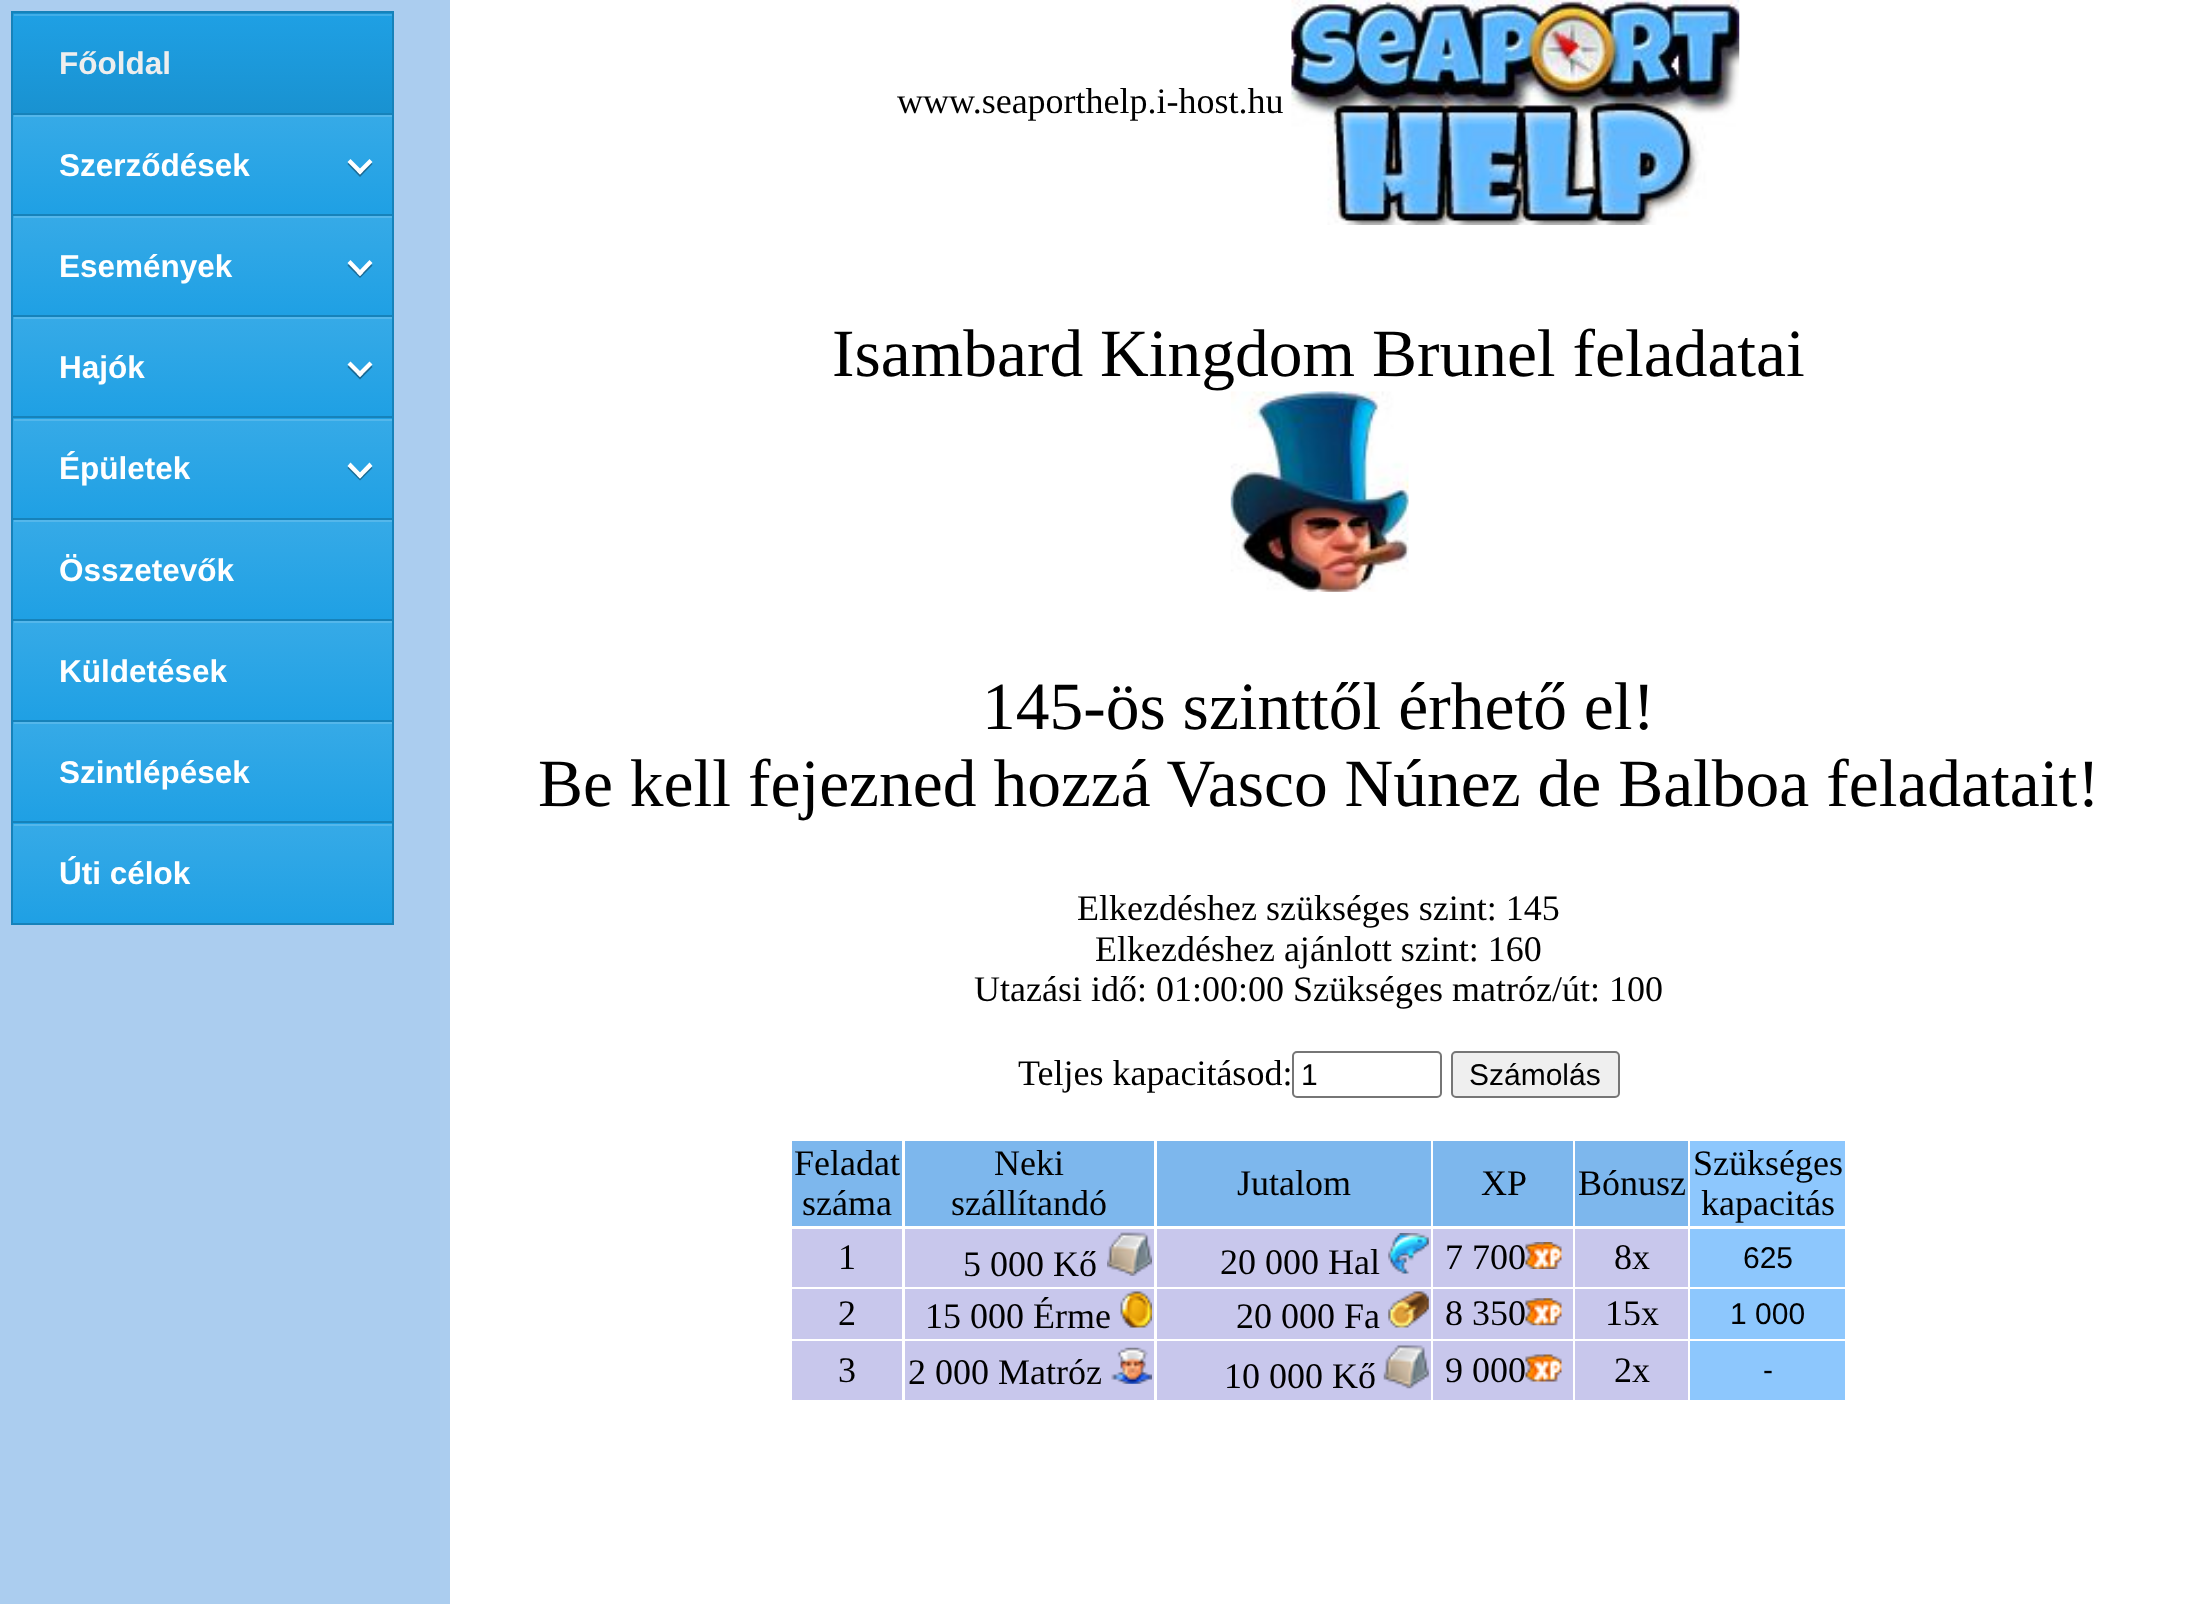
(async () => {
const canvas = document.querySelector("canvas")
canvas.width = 2186
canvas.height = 1604
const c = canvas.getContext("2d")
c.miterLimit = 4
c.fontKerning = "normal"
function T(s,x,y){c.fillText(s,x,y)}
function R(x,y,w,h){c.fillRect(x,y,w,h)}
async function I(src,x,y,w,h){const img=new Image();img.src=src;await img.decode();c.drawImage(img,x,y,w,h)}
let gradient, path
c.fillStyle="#fff"
R(0,0,2186,1604)
c.fillStyle="#abcdef"
R(0,0,450,1604)
gradient = c.createLinearGradient(203,-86,203,14)
gradient.addColorStop(0,"#1fa0e4")
gradient.addColorStop(1,"#1992d1")
c.fillStyle = gradient
R(11,13,383,1)
gradient = c.createLinearGradient(203,13,203,113)
gradient.addColorStop(0,"#1fa0e4")
gradient.addColorStop(1,"#1992d1")
c.fillStyle = gradient
R(13,14,379,99)
c.fillStyle="#41aee8"
R(14,14,378,2)
c.fillStyle="#1682ba"
R(11,11,383,2)
R(392,11,2,102)
R(11,11,2,102)
c.font="bold 31.5px Liberation Sans"
c.fillStyle="#eee"
T("Főoldal",59,74)
gradient = c.createLinearGradient(203,115,203,214)
gradient.addColorStop(0,"#36aae7")
gradient.addColorStop(1,"#1fa0e4")
c.fillStyle = gradient
R(13,115,379,99)
c.fillStyle="#54b7eb"
R(14,115,378,2)
c.fillStyle="#1682ba"
R(11,113,383,2)
R(392,113,2,101)
R(11,113,2,101)
c.fillStyle="#fff"
T("Szerződések",59,176)
c.fillStyle="#00000059"
path = new Path2D("M360 177l-12.5-13l3-3l9.5 9.5zm12.5-13l-12.5 13v-6.5l9.5-9.5z")
c.fill(path)
c.fillStyle="#fff"
path = new Path2D("M360 174.5l-12.5-12.5l3-3l12.5 12.5z")
c.fill(path)
path = new Path2D("M360 174.5l-3-3l12.5-12.5l3 3z")
c.fill(path)
gradient = c.createLinearGradient(203,216,203,315)
gradient.addColorStop(0,"#36aae7")
gradient.addColorStop(1,"#1fa0e4")
c.fillStyle = gradient
R(13,216,379,99)
c.fillStyle="#54b7eb"
R(14,216,378,2)
c.fillStyle="#1682ba"
R(11,214,383,2)
R(392,214,2,101)
R(11,214,2,101)
c.fillStyle="#fff"
T("Események",59,277)
c.fillStyle="#00000059"
path = new Path2D("M360 278l-12.5-12.5l3-3l9.5 9.5zm12.5-12.5l-12.5 12.5v-6l9.5-9.5z")
c.fill(path)
c.fillStyle="#fff"
path = new Path2D("M360 276l-12.5-13l3-3l12.5 13z")
c.fill(path)
path = new Path2D("M360 276l-3-3l12.5-13l3 3z")
c.fill(path)
gradient = c.createLinearGradient(203,317,203,416)
gradient.addColorStop(0,"#36aae7")
gradient.addColorStop(1,"#1fa0e4")
c.fillStyle = gradient
R(13,317,379,99)
c.fillStyle="#54b7eb"
R(14,317,378,2)
c.fillStyle="#1682ba"
R(11,315,383,2)
R(392,315,2,101)
R(11,315,2,101)
c.fillStyle="#fff"
T("Hajók",59,378)
c.fillStyle="#00000059"
path = new Path2D("M360 379.5l-12.5-12.5l3-3.5l9.5 9.5zm12.5-12.5l-12.5 12.5v-6.5l9.5-9.5z")
c.fill(path)
c.fillStyle="#fff"
path = new Path2D("M360 377l-12.5-12.5l3-3l12.5 12.5z")
c.fill(path)
path = new Path2D("M360 377l-3-3l12.5-12.5l3 3z")
c.fill(path)
gradient = c.createLinearGradient(203,320,203,419)
gradient.addColorStop(0,"#36aae7")
gradient.addColorStop(1,"#1fa0e4")
c.fillStyle = gradient
R(11,418,383,1)
gradient = c.createLinearGradient(203,419,203,518)
gradient.addColorStop(0,"#36aae7")
gradient.addColorStop(1,"#1fa0e4")
c.fillStyle = gradient
R(13,419,379,99)
c.fillStyle="#54b7eb"
R(14,419,378,2)
c.fillStyle="#1682ba"
R(11,416,383,2)
R(392,416,2,102)
R(11,416,2,102)
c.fillStyle="#fff"
T("Épületek",59,479)
c.fillStyle="#00000059"
path = new Path2D("M360 480.5l-12.5-12.5l3-3l9.5 9.5zm12.5-12.5l-12.5 12.5v-6l9.5-9.5z")
c.fill(path)
c.fillStyle="#fff"
path = new Path2D("M360 478.5l-12.5-12.5l3-3.5l12.5 13z")
c.fill(path)
path = new Path2D("M360 478.5l-3-3l12.5-13l3 3.5z")
c.fill(path)
gradient = c.createLinearGradient(203,520,203,619)
gradient.addColorStop(0,"#36aae7")
gradient.addColorStop(1,"#1fa0e4")
c.fillStyle = gradient
R(13,520,379,99)
c.fillStyle="#54b7eb"
R(14,520,378,2)
c.fillStyle="#1682ba"
R(11,518,383,2)
R(392,518,2,101)
R(11,518,2,101)
c.fillStyle="#fff"
T("Összetevők",59,581)
gradient = c.createLinearGradient(203,621,203,720)
gradient.addColorStop(0,"#36aae7")
gradient.addColorStop(1,"#1fa0e4")
c.fillStyle = gradient
R(13,621,379,99)
c.fillStyle="#54b7eb"
R(14,621,378,2)
c.fillStyle="#1682ba"
R(11,619,383,2)
R(392,619,2,101)
R(11,619,2,101)
c.fillStyle="#fff"
T("Küldetések",59,682)
gradient = c.createLinearGradient(203,722,203,821)
gradient.addColorStop(0,"#36aae7")
gradient.addColorStop(1,"#1fa0e4")
c.fillStyle = gradient
R(13,722,379,99)
c.fillStyle="#54b7eb"
R(14,722,378,2)
c.fillStyle="#1682ba"
R(11,720,383,2)
R(392,720,2,101)
R(11,720,2,101)
c.fillStyle="#fff"
T("Szintlépések",59,783)
gradient = c.createLinearGradient(203,725,203,824)
gradient.addColorStop(0,"#36aae7")
gradient.addColorStop(1,"#1fa0e4")
c.fillStyle = gradient
R(11,823,383,1)
gradient = c.createLinearGradient(203,824,203,923)
gradient.addColorStop(0,"#36aae7")
gradient.addColorStop(1,"#1fa0e4")
c.fillStyle = gradient
R(13,824,379,99)
c.fillStyle="#54b7eb"
R(14,824,378,2)
c.strokeStyle="#1682ba"
c.lineWidth=2
c.strokeRect(12,822,381,102)
c.fillStyle="#fff"
T("Úti célok",59,884)
c.font="36px Liberation Serif"
c.fillStyle="#000"
T("www.seaporthelp.i-host.hu",897,113)
await I("1.png",1291,0,449,225)
c.font="67.5px Liberation Serif"
T("Isambard Kingdom Brunel feladatai",832,376)
await I("2.png",1230,391,179,201)
T("145-ös szinttől érhető el!",982,729)
T("Be kell fejezned hozzá Vasco Núnez de Balboa feladatait!",538,806)
c.font="36px Liberation Serif"
T("Elkezdéshez szükséges szint: 145",1077,920)
T("Elkezdéshez ajánlott szint: 160",1095,961)
T("Utazási idő: 01:00:00 Szükséges matróz/út: 100",974,1001)
T("Teljes kapacitásod:",1018,1085)
c.beginPath()
c.roundRect(1293,1052,148,45,4)
c.strokeStyle="#767676"
c.stroke()
c.font="30px Liberation Sans"
T("1",1301,1085)
c.fillStyle="#efefef"
c.beginPath()
c.roundRect(1452,1052,167,45,4)
c.fill()
c.stroke()
c.fillStyle="#000"
T("Számolás",1469,1085)
c.fillStyle="#7db7ed"
R(792,1141,110,85)
c.font="36px Liberation Serif"
c.fillStyle="#000"
T("Feladat",794,1175)
T("száma",802,1215)
c.fillStyle="#7db7ed"
R(905,1141,249,85)
c.fillStyle="#000"
T("Neki",994,1175)
T("szállítandó",951,1215)
c.fillStyle="#7db7ed"
R(1157,1141,274,85)
c.fillStyle="#000"
T("Jutalom",1237,1195)
c.fillStyle="#7db7ed"
R(1433,1141,140,85)
c.fillStyle="#000"
T("XP",1481,1195)
c.fillStyle="#7db7ed"
R(1575,1141,113,85)
c.fillStyle="#000"
T("Bónusz",1578,1195)
c.fillStyle="#8dc7fd"
R(1690,1141,155,85)
c.fillStyle="#000"
T("Szükséges",1693,1175)
T("kapacitás",1701,1215)
c.fillStyle="#c8c7ec"
R(792,1229,110,58)
c.fillStyle="#000"
T("1",838,1269)
c.fillStyle="#c8c7ec"
R(905,1229,249,58)
c.fillStyle="#000"
T("5 000 Kő",963,1276)
await I("3.png",1107,1232,45,44)
c.fillStyle="#c8c7ec"
R(1157,1229,274,58)
c.fillStyle="#000"
T("20 000 Hal",1220,1274)
await I("4.png",1388,1233,41,41)
c.fillStyle="#c8c7ec"
R(1433,1229,140,58)
c.fillStyle="#000"
T("7 700",1445,1269)
await I("5.png",1525,1242,37,27)
c.fillStyle="#c8c7ec"
R(1575,1229,113,58)
c.fillStyle="#000"
T("8x",1614,1269)
c.fillStyle="#8dc7fd"
R(1690,1229,155,58)
c.font="30px Liberation Sans"
c.fillStyle="#000"
T("625",1743,1268)
c.fillStyle="#c8c7ec"
R(792,1289,110,50)
c.font="36px Liberation Serif"
c.fillStyle="#000"
T("2",838,1325)
c.fillStyle="#c8c7ec"
R(905,1289,249,50)
c.fillStyle="#000"
T("15 000 Érme",925,1328)
await I("6.png",1120,1291,32,37)
c.fillStyle="#c8c7ec"
R(1157,1289,274,50)
c.fillStyle="#000"
T("20 000 Fa",1236,1328)
await I("7.png",1388,1291,41,37)
c.fillStyle="#c8c7ec"
R(1433,1289,140,50)
c.fillStyle="#000"
T("8 350",1445,1325)
await I("8.png",1525,1298,37,28)
c.fillStyle="#c8c7ec"
R(1575,1289,113,50)
c.fillStyle="#000"
T("15x",1605,1325)
c.fillStyle="#8dc7fd"
R(1690,1289,155,50)
c.font="30px Liberation Sans"
c.fillStyle="#000"
T("1 000",1730,1324)
c.fillStyle="#c8c7ec"
R(792,1341,110,59)
c.font="36px Liberation Serif"
c.fillStyle="#000"
T("3",838,1382)
c.fillStyle="#c8c7ec"
R(905,1341,249,59)
c.fillStyle="#000"
T("2 000 Matróz",908,1384)
await I("9.png",1111,1347,41,37)
c.fillStyle="#c8c7ec"
R(1157,1341,274,59)
c.fillStyle="#000"
T("10 000 Kő",1224,1388)
await I("10.png",1383,1345,46,44)
c.fillStyle="#c8c7ec"
R(1433,1341,140,59)
c.fillStyle="#000"
T("9 000",1445,1382)
await I("11.png",1525,1354,37,28)
c.fillStyle="#c8c7ec"
R(1575,1341,113,59)
c.fillStyle="#000"
T("2x",1614,1382)
c.fillStyle="#8dc7fd"
R(1690,1341,155,59)
c.font="30px Liberation Sans"
c.fillStyle="#000"
T("-",1763,1380)
})()
